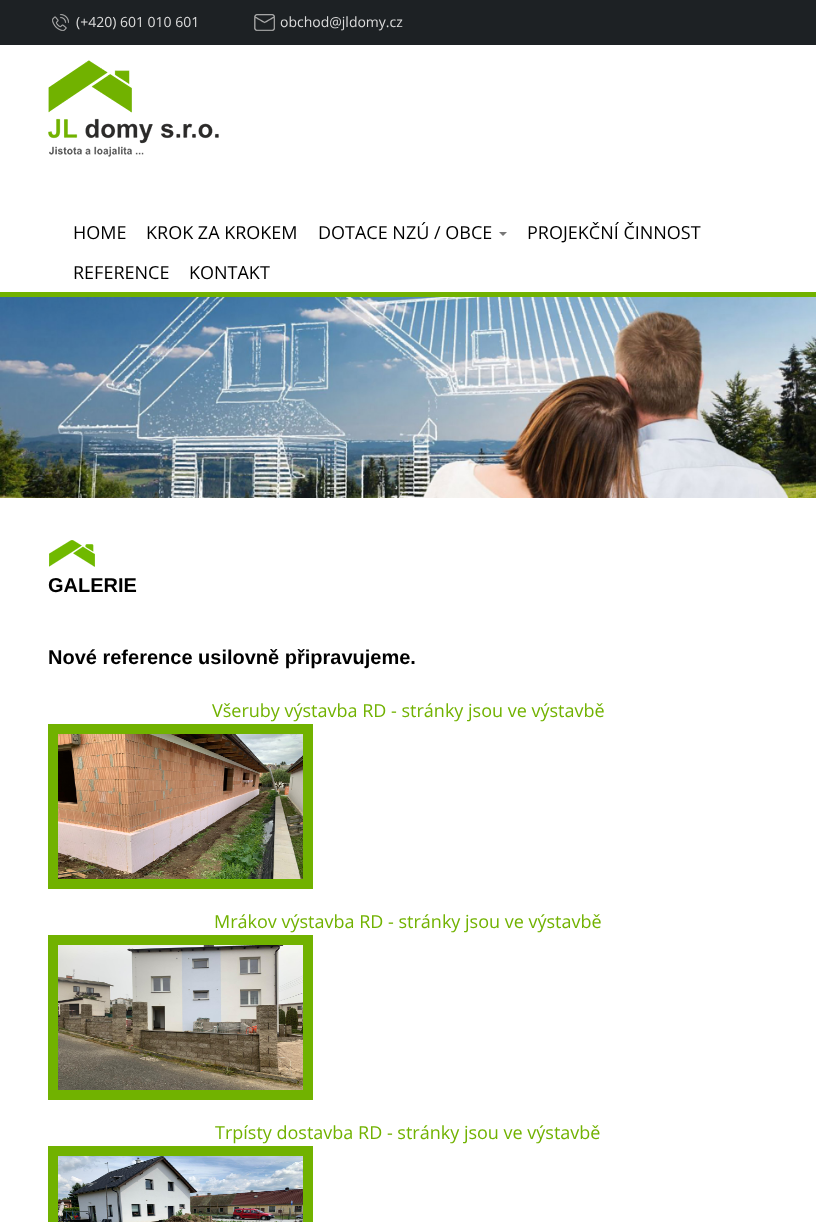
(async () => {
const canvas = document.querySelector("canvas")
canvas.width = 816
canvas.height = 1222
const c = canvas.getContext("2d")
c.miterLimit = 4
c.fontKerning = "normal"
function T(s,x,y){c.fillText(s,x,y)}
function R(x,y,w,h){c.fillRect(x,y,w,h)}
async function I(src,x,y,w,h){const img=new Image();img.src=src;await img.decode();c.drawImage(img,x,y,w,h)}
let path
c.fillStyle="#fff"
R(0,0,816,1222)
c.fillStyle="#1d2124"
R(0,0,816,45)
await I("1.png",52,14,17,17)
c.font="14px Open Sans"
c.fillStyle="#dcdcdc"
T("(+420) 601 010 601",76,27)
await I("2.png",254,14,21,17)
T("obchod@jldomy.cz",280,27)
c.fillStyle="#71b200"
R(0,292,816,5)
await I("3.png",48,60,171,97)
c.font="18px Open Sans"
c.fillStyle="#000"
T("HOME",73,239)
T("KROK ZA KROKEM",146,239)
T("DOTACE NZÚ / OBCE",318,239)
c.fillStyle="#777"
path = new Path2D("M499 232h8l-4 4z")
c.fill(path)
c.fillStyle="#000"
T("PROJEKČNÍ ČINNOST",527,239)
T("REFERENCE",73,279)
T("KONTAKT",189,279)
await I("4.png",0,297,816,201)
await I("5.png",49,540,46,27)
c.font="bold 20px Liberation Sans"
T("GALERIE",48,592)
T("Nové reference usilovně připravujeme.",48,664)
c.font="18px Open Sans"
c.fillStyle="#71b200"
T("Všeruby výstavba RD - stránky jsou ve výstavbě",212,717)
c.strokeStyle="#71b200"
c.lineWidth=10
c.strokeRect(53,729,255,155)
await I("6.png",58,734,245,145)
T("Mrákov výstavba RD - stránky jsou ve výstavbě",214,928)
c.strokeRect(53,940,255,155)
await I("7.png",58,945,245,145)
T("Trpísty dostavba RD - stránky jsou ve výstavbě",215,1139)
c.strokeRect(53,1151,255,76)
await I("8.png",58,1156,245,66)
})()
